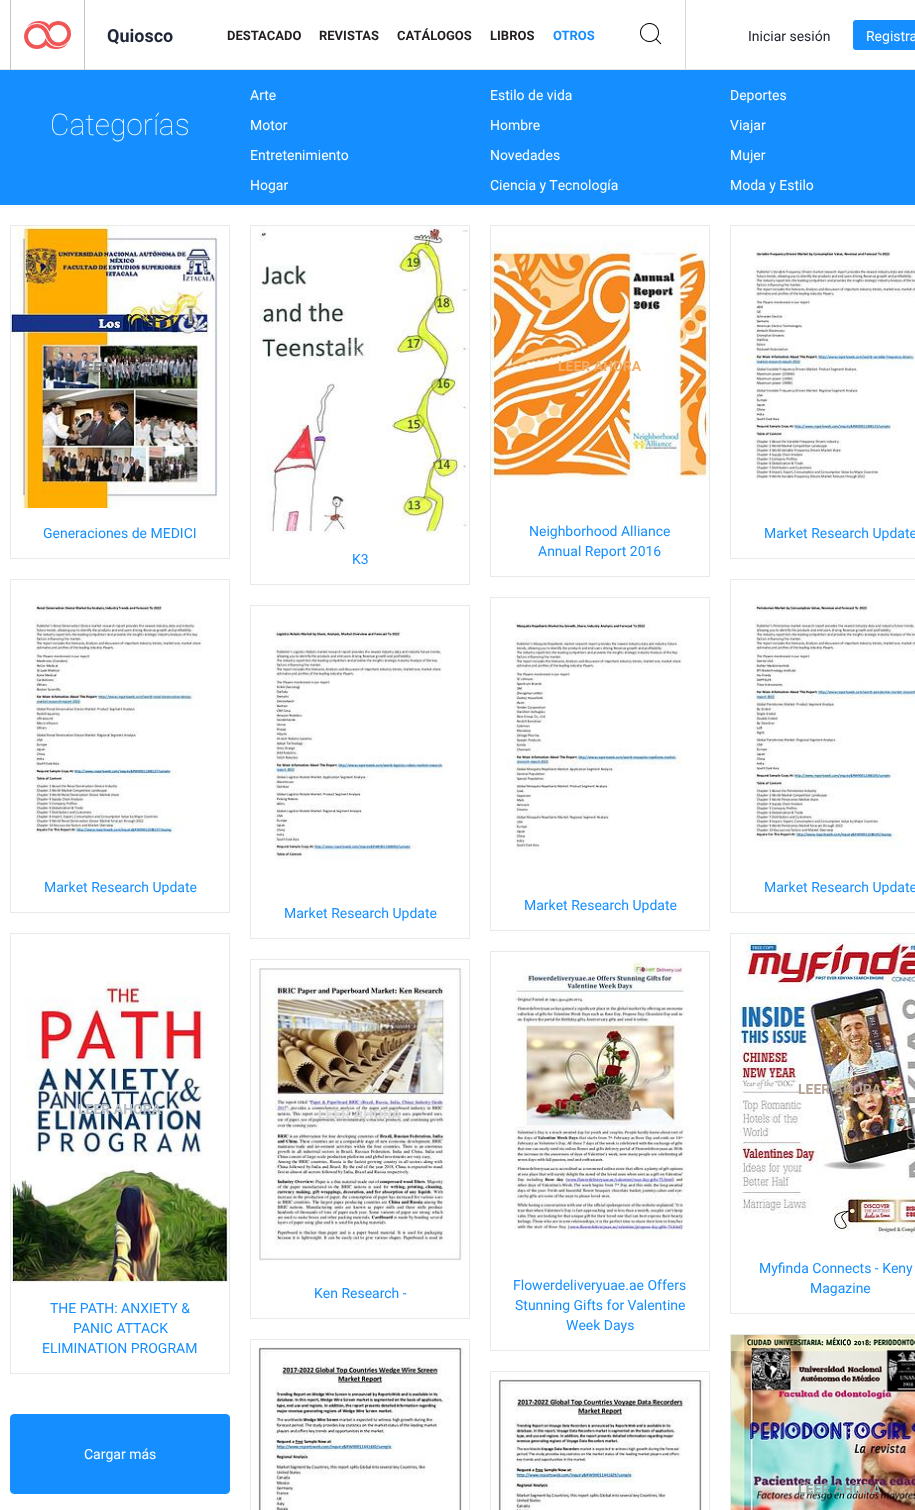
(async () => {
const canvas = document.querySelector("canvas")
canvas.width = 915
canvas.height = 1510
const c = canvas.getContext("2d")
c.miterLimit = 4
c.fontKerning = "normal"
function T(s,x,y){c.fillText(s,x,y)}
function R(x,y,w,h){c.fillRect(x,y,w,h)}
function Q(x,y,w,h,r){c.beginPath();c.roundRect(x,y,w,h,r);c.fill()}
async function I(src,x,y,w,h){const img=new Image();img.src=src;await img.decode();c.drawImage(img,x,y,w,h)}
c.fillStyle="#fff"
R(0,0,915,1510)
c.fillStyle="#e5e5e5"
R(0,69,915,1)
c.fillStyle="#c6c6c6"
R(84,0,1,70)
R(10,0,1,70)
await I("1.png",24,21,47,28)
c.font="bold 18px Roboto"
c.fillStyle="#1e2638"
T("Quiosco",107,42)
c.font="bold 13px Roboto"
c.fillStyle="#231f20"
T("DESTACADO",227,40)
T("REVISTAS",319,40)
T("CATÁLOGOS",397,40)
T("LIBROS",490,40)
c.fillStyle="#158fff"
T("OTROS",553,40)
c.fillStyle="#d2d7d9"
R(685,0,1,69)
await I("2.png",640,23,22,22)
c.font="14px Roboto"
c.fillStyle="#202532"
T("Iniciar sesión",748,41)
c.fillStyle="#158fff"
Q(853,20,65,30,3)
c.fillStyle="#fff"
T("Registra",866,41)
c.fillStyle="#158fff"
R(0,70,915,135)
c.font="100 30px Roboto"
c.fillStyle="#fff"
T("Categorías",50,135)
c.font="14px Roboto"
T("Arte",250,100)
T("Motor",250,130)
T("Entretenimiento",250,160)
T("Hogar",250,190)
T("Estilo de vida",490,100)
T("Hombre",490,130)
T("Novedades",490,160)
T("Ciencia y Tecnología",490,190)
T("Deportes",730,100)
T("Viajar",730,130)
T("Mujer",730,160)
T("Moda y Estilo",730,190)
c.strokeStyle="#e8ebeb"
c.strokeRect(10.5,225.5,219,333)
await I("3.png",11,226,207,282)
c.font="bold 14px Roboto"
c.fillStyle="#7f8187"
T("LEER AHORA",78,372)
c.font="14px Roboto"
c.fillStyle="#158fff"
T("Generaciones de MEDICI",43,538)
c.strokeRect(490.5,225.5,219,351)
await I("4.png",491,241,218,239)
c.font="bold 14px Roboto"
c.fillStyle="#f3ae69"
T("LEER AHORA",558,371)
c.font="14px Roboto"
c.fillStyle="#158fff"
T("Neighborhood Alliance",529,536)
T("Annual Report 2016",538,556)
c.strokeRect(730.5,225.5,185,333)
await I("5.png",747,249,168,231)
T("Market Research Update",764,538)
c.strokeRect(250.5,225.5,219,359)
await I("6.png",259,226,210,308)
T("K3",352,564)
c.strokeRect(10.5,579.5,219,333)
await I("7.png",27,604,175,230)
T("Market Research Update",44,892)
c.strokeRect(730.5,579.5,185,333)
await I("8.png",747,604,168,245)
T("Market Research Update",764,892)
c.strokeRect(250.5,605.5,219,333)
await I("9.png",267,630,182,230)
T("Market Research Update",284,918)
c.strokeRect(490.5,597.5,219,333)
await I("10.png",507,621,175,230)
T("Market Research Update",524,910)
c.strokeRect(10.5,933.5,219,440)
await I("11.png",11,981,218,302)
c.font="bold 14px Roboto"
c.fillStyle="#b3bdc5"
T("LEER AHORA",78,1114)
c.font="14px Roboto"
c.fillStyle="#158fff"
T("THE PATH: ANXIETY &",50,1313)
T("PANIC ATTACK",73,1333)
T("ELIMINATION PROGRAM",42,1353)
c.strokeRect(250.5,959.5,219,359)
await I("12.png",259,968,206,293)
c.font="bold 14px Roboto"
c.fillStyle="#dddcdc"
T("LEER AHORA",318,1119)
c.font="14px Roboto"
c.fillStyle="#158fff"
T("Ken Research -",314,1298)
c.strokeRect(490.5,951.5,219,399)
await I("13.png",514,960,175,277)
c.font="bold 14px Roboto"
c.fillStyle="#827261"
T("LEER AHORA",558,1111)
c.font="14px Roboto"
c.fillStyle="#158fff"
T("Flowerdeliveryuae.ae Offers",513,1290)
T("Stunning Gifts for Valentine",515,1310)
T("Week Days",566,1330)
c.strokeRect(730.5,933.5,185,380)
await I("14.png",731,934,184,304)
c.font="bold 14px Roboto"
c.fillStyle="#b4a296"
T("LEER AHORA",798,1094)
c.font="14px Roboto"
c.fillStyle="#158fff"
T("Myfinda Connects - Keny",759,1273)
T("Magazine",810,1293)
c.beginPath()
c.roundRect(10.5,1414.5,219,79,3.5)
c.fill()
c.strokeStyle="#158fff"
c.stroke()
c.fillStyle="#fff"
T("Cargar más",84,1459)
c.strokeStyle="#e8ebeb"
c.strokeRect(250.5,1339.5,219,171)
await I("15.png",258,1347,207,163)
c.strokeRect(490.5,1371.5,219,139)
await I("16.png",498,1379,207,131)
c.strokeRect(730.5,1334.5,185,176)
await I("17.png",731,1335,184,175)
c.font="bold 14px Roboto"
c.fillStyle="#91a8a4"
T("LEER AHORA",798,1494)
})()
